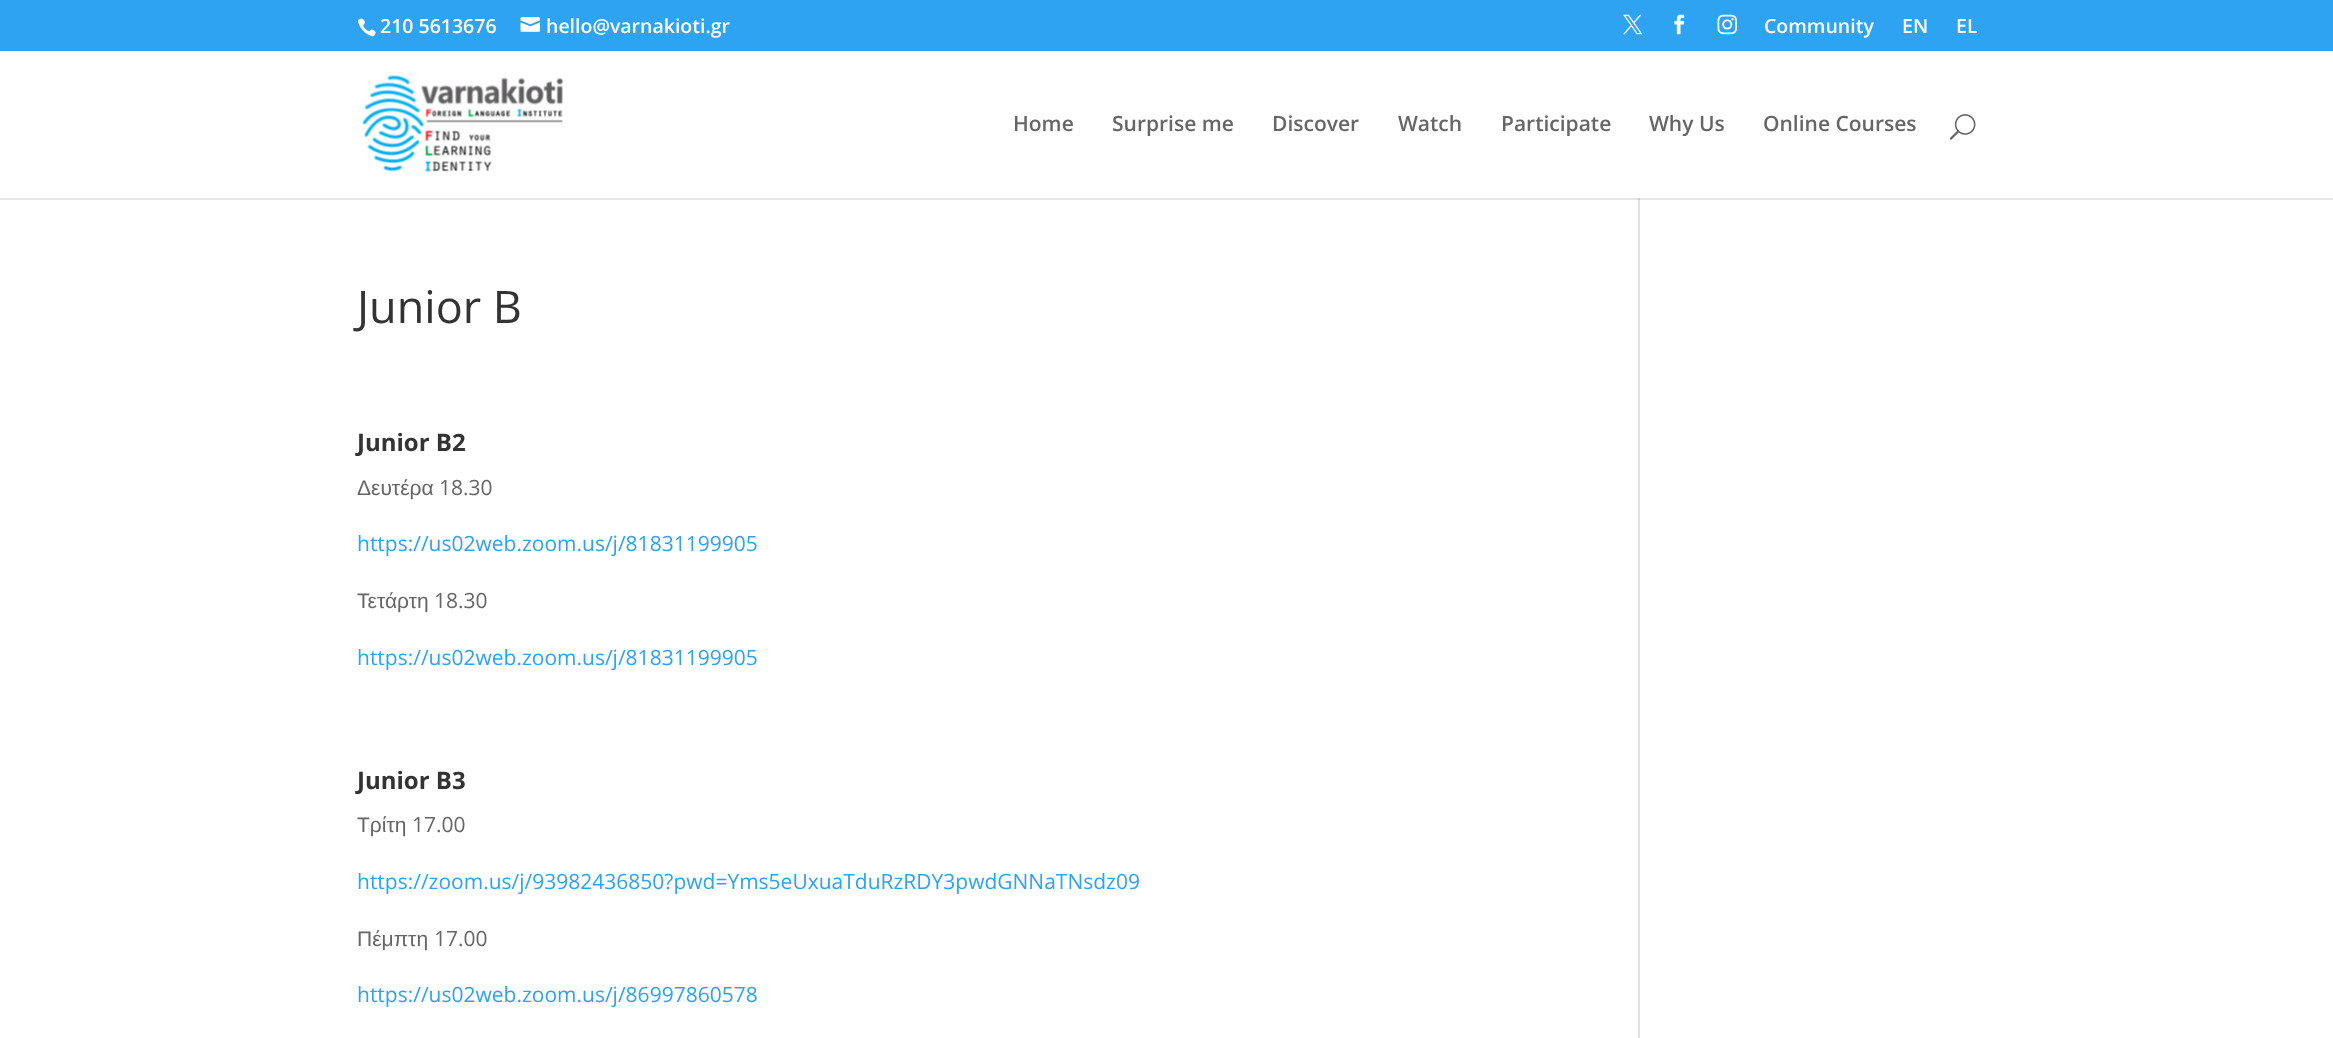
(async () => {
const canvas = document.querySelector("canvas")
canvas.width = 2333
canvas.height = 1038
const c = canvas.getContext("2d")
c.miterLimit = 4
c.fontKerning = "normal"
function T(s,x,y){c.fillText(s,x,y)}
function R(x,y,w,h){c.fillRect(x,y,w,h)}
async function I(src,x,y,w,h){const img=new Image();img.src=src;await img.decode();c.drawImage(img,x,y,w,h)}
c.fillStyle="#fff"
R(0,0,2333,1038)
c.fillStyle="#e6e6e6"
R(0,198,2333,2)
c.fillStyle="#2ea3f2"
R(0,0,2333,51)
await I("1.png",357,18,19,19)
c.font="600 19.5px Open Sans"
c.fillStyle="#fff"
T("210 5613676",380,33)
await I("2.png",520,17,20,15)
T("hello@varnakioti.gr",546,33)
await I("3.png",1623,14,20,21)
await I("4.png",1674,14,11,21)
await I("5.png",1717,14,20,21)
T("Community",1764,33)
T("EN",1902,33)
T("EL",1956,33)
c.fillStyle="#e2e2e2"
R(1638,197,2,841)
c.fillStyle="#fff"
R(1638,197,2,1)
await I("6.png",362,75,201,97)
c.font="600 21px Open Sans"
c.fillStyle="#666"
T("Home",1013,131)
T("Surprise me",1112,131)
T("Discover",1272,131)
T("Watch",1398,131)
T("Participate",1501,131)
T("Why Us",1649,131)
T("Online Courses",1763,131)
await I("7.png",1949,114,27,26)
c.font="45px Open Sans"
c.fillStyle="#333"
T("Junior B",357,323)
c.font="bold 24px Open Sans"
T("Junior B2",357,451)
c.font="21px Liberation Sans"
c.fillStyle="#666"
T("Δευτέρα",357,495)
c.font="21px Open Sans"
T("18.30",439,495)
c.fillStyle="#2ea3f2"
T("https://us02web.zoom.us/j/81831199905",357,551)
c.font="21px Liberation Sans"
c.fillStyle="#666"
T("Τετάρτη",357,608)
c.font="21px Open Sans"
T("18.30",434,608)
c.fillStyle="#2ea3f2"
T("https://us02web.zoom.us/j/81831199905",357,665)
c.font="bold 24px Open Sans"
c.fillStyle="#333"
T("Junior B3",357,789)
c.font="21px Liberation Sans"
c.fillStyle="#666"
T("Τρίτη",357,832)
c.font="21px Open Sans"
T("17.00",412,832)
c.fillStyle="#2ea3f2"
T("https://zoom.us/j/93982436850?pwd=Yms5eUxuaTduRzRDY3pwdGNNaTNsdz09",357,889)
c.font="21px Liberation Sans"
c.fillStyle="#666"
T("Πέμπτη",357,946)
c.font="21px Open Sans"
T("17.00",434,946)
c.fillStyle="#2ea3f2"
T("https://us02web.zoom.us/j/86997860578",357,1002)
c.fillStyle="#cbcbcb"
R(1638,198,2,2)
})()
